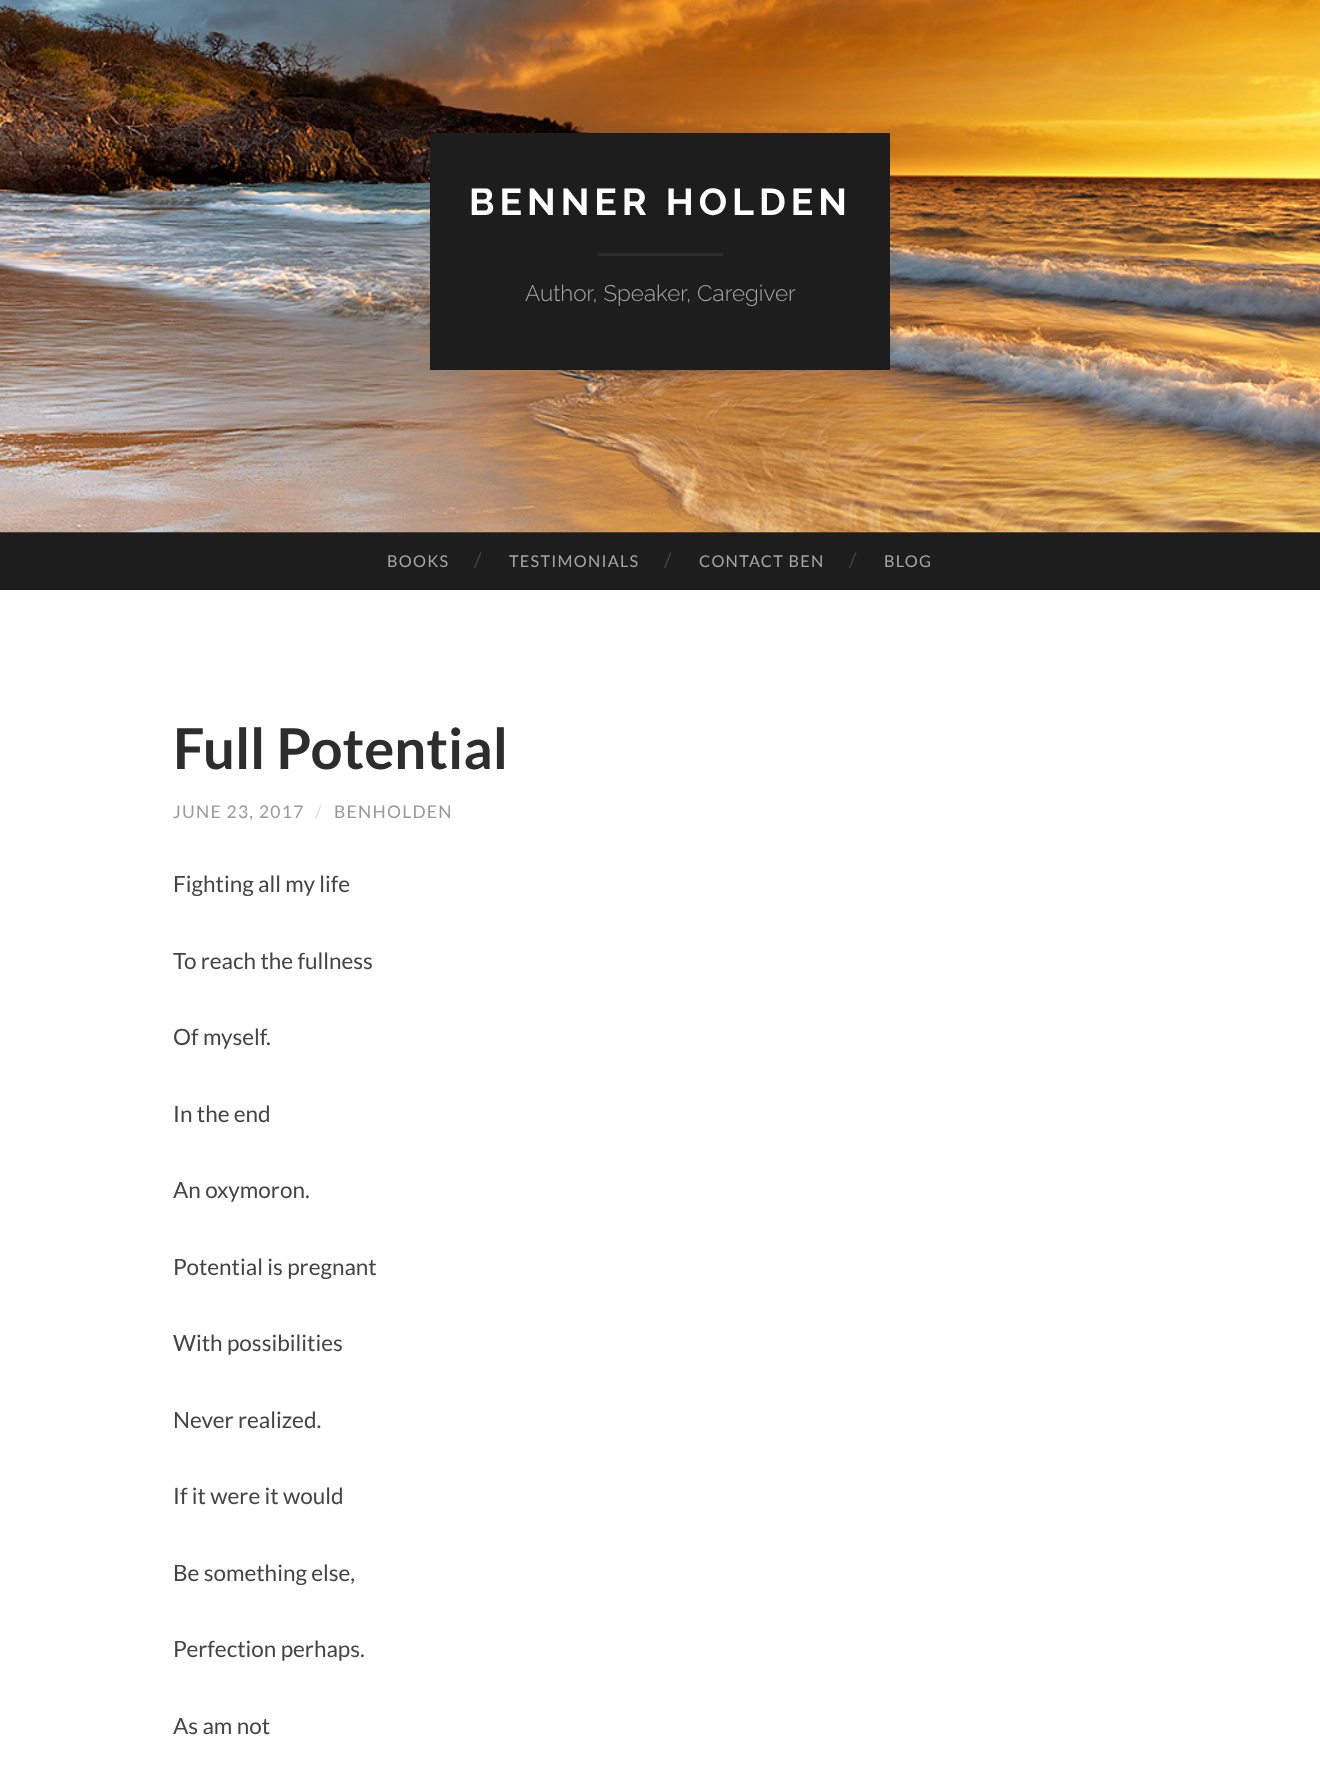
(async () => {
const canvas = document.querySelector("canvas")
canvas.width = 1320
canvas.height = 1766
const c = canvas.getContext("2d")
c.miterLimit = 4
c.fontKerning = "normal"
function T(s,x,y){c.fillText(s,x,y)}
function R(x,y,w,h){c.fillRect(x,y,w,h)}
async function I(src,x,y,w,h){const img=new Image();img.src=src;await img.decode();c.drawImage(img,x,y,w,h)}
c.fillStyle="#fff"
R(0,0,1320,1766)
c.fillStyle="#262626"
R(0,532,1320,1)
await I("1.png",0,0,1320,533)
c.fillStyle="#1d1d1d"
R(430,133,460,237)
c.letterSpacing="5px"
c.font="bold 37.5px Raleway"
c.fillStyle="#fff"
T("BENNER HOLDEN",469,215)
c.fillStyle="#2b2b2b"
R(598,253,125,3)
c.letterSpacing="0px"
c.font="300 22.5px Raleway"
c.fillStyle="#a5a5a5"
T("Author, Speaker, Caregiver",525,301)
c.fillStyle="#1d1d1d"
R(0,533,1320,57)
c.letterSpacing="1.25px"
c.font="16.25px Lato"
c.fillStyle="#a5a5a5"
T("BOOKS",387,567)
c.letterSpacing="0px"
c.font="20px Lato"
c.fillStyle="#444"
T("/",474,567)
c.letterSpacing="1.25px"
c.font="16.25px Lato"
c.fillStyle="#a5a5a5"
T("TESTIMONIALS",509,567)
c.letterSpacing="0px"
c.font="20px Lato"
c.fillStyle="#444"
T("/",664,567)
c.letterSpacing="1.25px"
c.font="16.25px Lato"
c.fillStyle="#a5a5a5"
T("CONTACT BEN",699,567)
c.letterSpacing="0px"
c.font="20px Lato"
c.fillStyle="#444"
T("/",849,567)
c.letterSpacing="1.25px"
c.font="16.25px Lato"
c.fillStyle="#a5a5a5"
T("BLOG",884,567)
c.letterSpacing="0px"
c.font="bold 56.25px Lato"
c.fillStyle="#2d2d2d"
T("Full Potential",173,769)
c.letterSpacing="1.25px"
c.font="17.5px Lato"
c.fillStyle="#999"
T("JUNE 23, 2017",173,818)
c.fillStyle="#ddd"
T("/",315,818)
c.fillStyle="#999"
T("BENHOLDEN",334,818)
c.letterSpacing="0px"
c.font="22.5px Lato"
c.fillStyle="#444"
T("Fighting all my life",173,892)
T("To reach the fullness",173,969)
T("Of myself.",173,1045)
T("In the end",173,1122)
T("An oxymoron.",173,1198)
T("Potential is pregnant",173,1275)
T("With possibilities",173,1351)
T("Never realized.",173,1428)
T("If it were it would",173,1504)
T("Be something else,",173,1581)
T("Perfection perhaps.",173,1657)
T("As am not",173,1734)
})()
